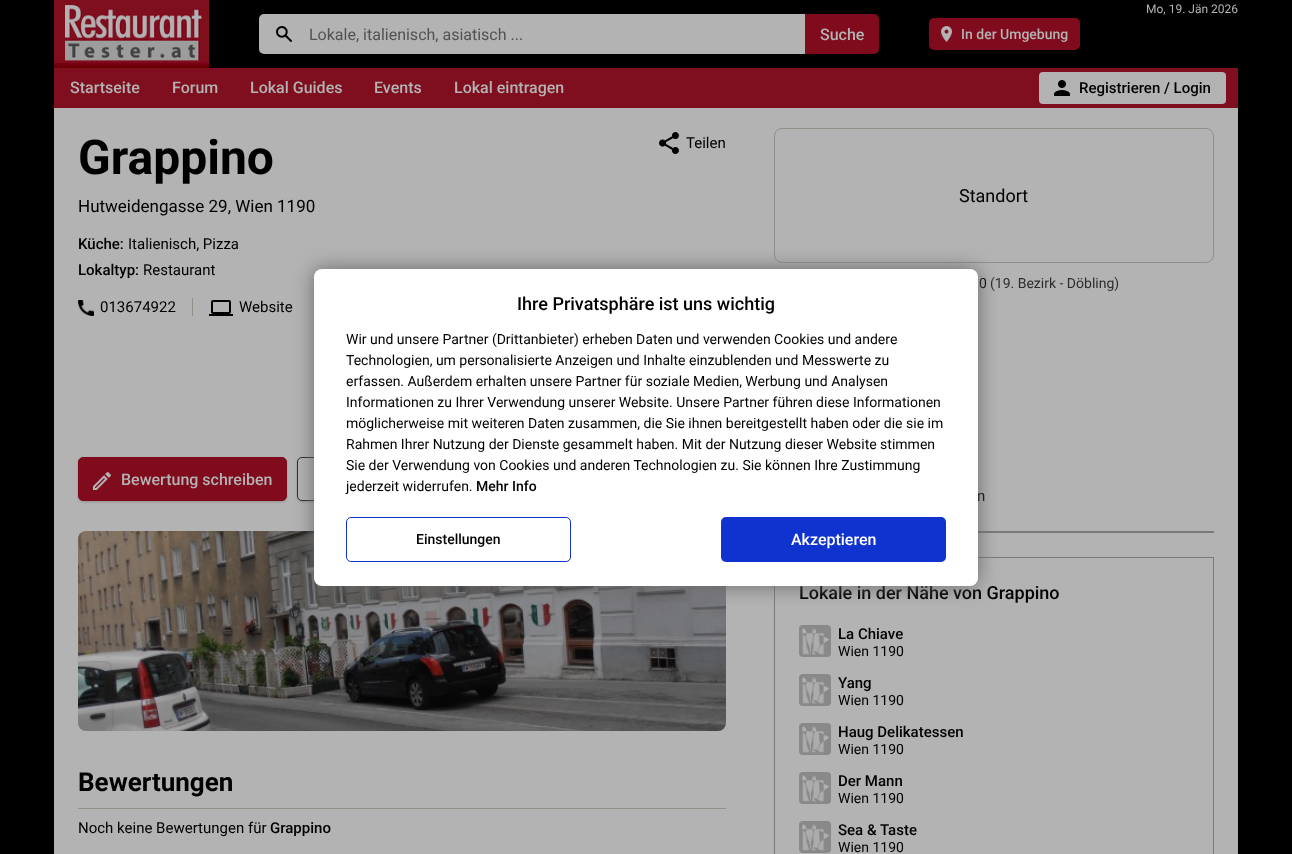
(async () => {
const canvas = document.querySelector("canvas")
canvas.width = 1292
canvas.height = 854
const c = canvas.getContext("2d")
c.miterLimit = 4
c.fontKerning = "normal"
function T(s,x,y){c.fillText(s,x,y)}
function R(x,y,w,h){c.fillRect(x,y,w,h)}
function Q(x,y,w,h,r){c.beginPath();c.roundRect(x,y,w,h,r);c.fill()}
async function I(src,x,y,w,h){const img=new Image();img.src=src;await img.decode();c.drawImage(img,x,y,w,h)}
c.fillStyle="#000"
R(0,0,1292,854)
await I("1.png",54,0,155,68)
c.font="12px Roboto"
c.fillStyle="#b3b3b3"
T("Mo, 19. Jän 2026",1146,13)
c.beginPath()
c.roundRect(259,14,546,40,[5,0,0,5])
c.fill()
await I("2.png",276,26,16,16)
c.font="16px Roboto"
c.fillStyle="#525252"
T("Lokale, italienisch, asiatisch ...",309,40)
c.fillStyle="#800b1d"
c.beginPath()
c.roundRect(805,14,74,40,[0,5,5,0])
c.fill()
c.font="500 16px Roboto"
c.fillStyle="#b3b3b3"
T("Suche",820,40)
c.fillStyle="#800b1d"
Q(929,18,151,32,5)
await I("3.png",941,26,11,16)
c.font="500 14px Roboto"
c.fillStyle="#b3b3b3"
T("In der Umgebung",961,39)
c.fillStyle="#7f0f1e"
R(54,68,1184,40)
c.font="500 16px Roboto"
c.fillStyle="#b3b3b3"
T("Startseite",70,93)
T("Forum",172,93)
T("Lokal Guides",250,93)
T("Events",374,93)
T("Lokal eintragen",454,93)
Q(1039,72,187,32,4)
await I("4.png",1054,80,16,16)
c.font="500 15px Roboto"
c.fillStyle="#000"
T("Registrieren / Login",1079,93)
c.fillStyle="#b3b3b3"
R(54,108,1184,746)
c.font="bold 48px Roboto"
c.fillStyle="#000"
T("Grappino",78,174)
c.font="17px Roboto"
T("Hutweidengasse 29, Wien 1190",78,212)
c.font="500 15px Roboto"
T("Küche:",78,249)
c.font="15px Roboto"
T("Italienisch, Pizza",128,249)
c.font="500 15px Roboto"
T("Lokaltyp:",78,275)
c.font="15px Roboto"
T("Restaurant",143,275)
await I("5.png",78,300,16,16)
T("013674922",100,312)
c.fillStyle="#909089"
R(192,298,1,18)
await I("6.png",209,300,24,16)
c.fillStyle="#000"
T("Website",239,312)
await I("7.png",659,132,20,22)
T("Teilen",686,148)
c.fillStyle="#00000033"
c.filter="blur(1px)"
c.beginPath()
c.roundRect(78,458,209,44,5)
c.fill()
c.filter="none"
c.fillStyle="#800b1d"
c.beginPath()
c.roundRect(78.5,457.5,208,43,4.5)
c.fill()
c.strokeStyle="#800b1d"
c.stroke()
await I("8.png",93,472,18,18)
c.font="500 16px Roboto"
c.fillStyle="#b3b3b3"
T("Bewertung schreiben",121,485)
c.fillStyle="#00000033"
c.filter="blur(1px)"
c.beginPath()
c.roundRect(297,458,210,44,5)
c.fill()
c.filter="none"
c.fillStyle="#b3b3b3"
c.beginPath()
c.roundRect(297.5,457.5,209,43,4.5)
c.fill()
c.strokeStyle="#2d2d2d"
c.stroke()
await I("9.png",78,531,648,200)
c.font="bold 26px Roboto"
c.fillStyle="#000"
T("Bewertungen",78,791)
c.fillStyle="#909089"
R(78,808,648,1)
c.font="15px Roboto"
c.fillStyle="#000"
T("Noch keine Bewertungen für",78,833)
c.font="500 15px Roboto"
T("Grappino",270,833)
c.beginPath()
c.roundRect(774.5,128.5,439,134,7.5)
c.strokeStyle="#909089"
c.stroke()
c.font="18px Roboto"
T("Standort",959,202)
c.font="14px Roboto"
T("0",979,288)
c.fillStyle="#2d2d2d"
T("(19. Bezirk - Döbling)",990,288)
c.font="15px Roboto"
c.fillStyle="#000"
T("n",977,501)
c.fillStyle="#7a7a7a"
R(978,531,236,2)
c.strokeStyle="#7a7a7a"
c.strokeRect(774.5,557.5,439,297)
c.font="500 18px Roboto"
c.fillStyle="#000"
T("Lokale in der Nähe von Grappino",799,599)
await I("10.png",799,625,32,32)
c.font="500 15px Roboto"
T("La Chiave",838,639)
c.font="14px Roboto"
T("Wien 1190",838,656)
await I("10.png",799,674,32,32)
c.font="500 15px Roboto"
T("Yang",838,688)
c.font="14px Roboto"
T("Wien 1190",838,705)
await I("10.png",799,723,32,32)
c.font="500 15px Roboto"
T("Haug Delikatessen",838,737)
c.font="14px Roboto"
T("Wien 1190",838,754)
await I("10.png",799,772,32,32)
c.font="500 15px Roboto"
T("Der Mann",838,786)
c.font="14px Roboto"
T("Wien 1190",838,803)
await I("10.png",799,821,32,32)
c.font="500 15px Roboto"
T("Sea & Taste",838,835)
c.font="14px Roboto"
T("Wien 1190",838,852)
c.fillStyle="#696969"
c.filter="blur(10px)"
c.beginPath()
c.roundRect(314,269,664,317,8)
c.fill()
c.filter="none"
c.fillStyle="#fff"
Q(314,269,664,317,8)
c.font="500 18px Roboto"
c.fillStyle="#000"
T("Ihre Privatsphäre ist uns wichtig",517,310)
c.font="14px Roboto"
T("Wir und unsere Partner (Drittanbieter) erheben Daten und verwenden Cookies und andere",346,344)
T("Technologien, um personalisierte Anzeigen und Inhalte einzublenden und Messwerte zu",346,365)
T("erfassen. Außerdem erhalten unsere Partner für soziale Medien, Werbung und Analysen",346,386)
T("Informationen zu Ihrer Verwendung unserer Website. Unsere Partner führen diese Informationen",346,407)
T("möglicherweise mit weiteren Daten zusammen, die Sie ihnen bereitgestellt haben oder die sie im",346,428)
T("Rahmen Ihrer Nutzung der Dienste gesammelt haben. Mit der Nutzung dieser Website stimmen",346,449)
T("Sie der Verwendung von Cookies und anderen Technologien zu. Sie können Ihre Zustimmung",346,470)
T("jederzeit widerrufen.",346,491)
c.font="500 14px Roboto"
T("Mehr Info",476,491)
c.beginPath()
c.roundRect(346.5,517.5,224,44,4.5)
c.strokeStyle="#1032cf"
c.stroke()
T("Einstellungen",416,544)
c.fillStyle="#1032cf"
Q(721,517,225,45,5)
c.font="500 16px Roboto"
c.fillStyle="#fff"
T("Akzeptieren",791,545)
})()
